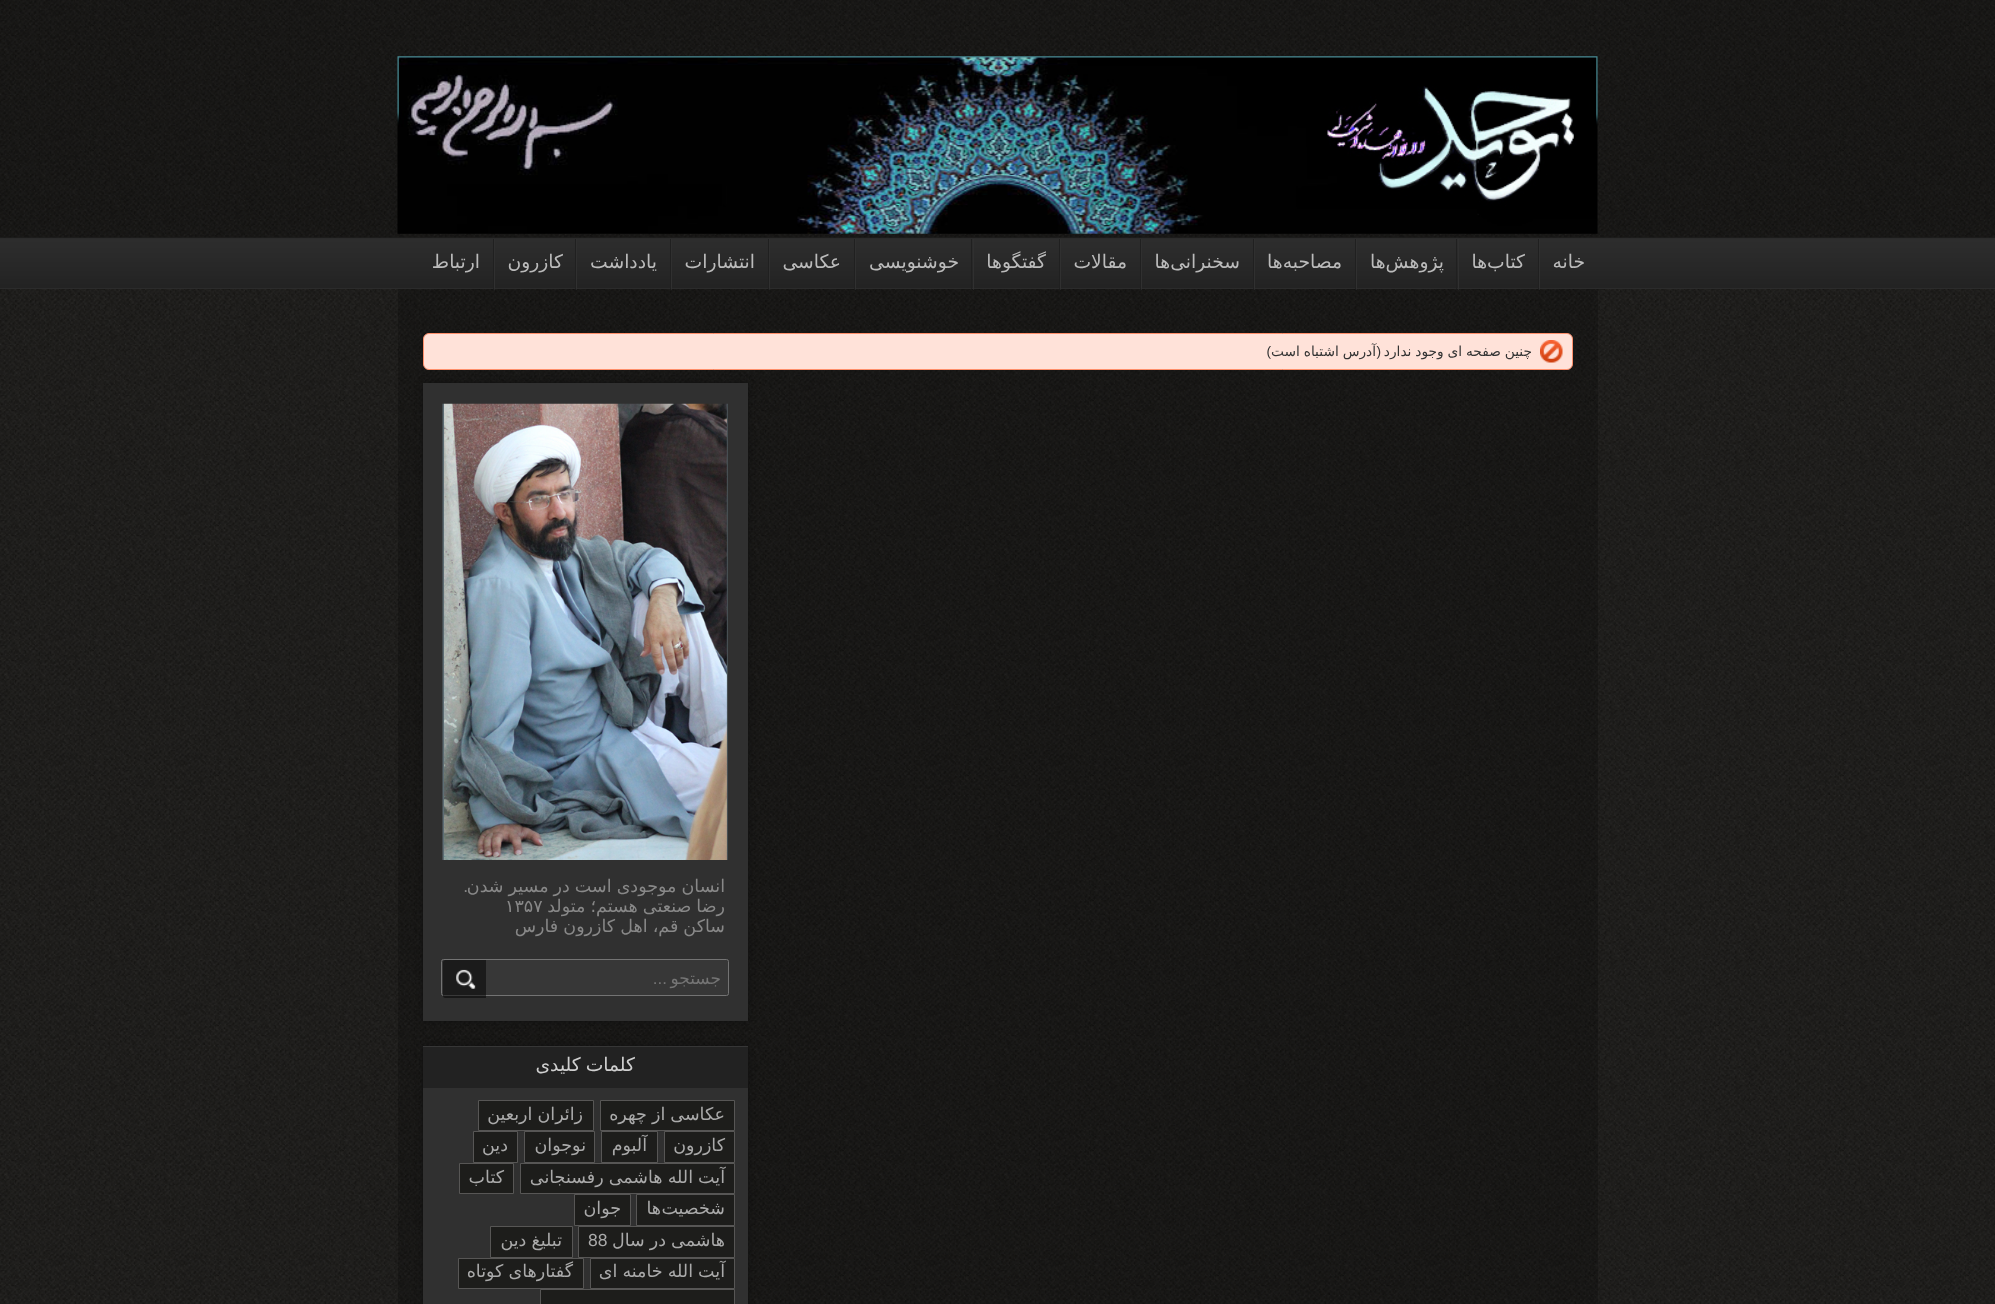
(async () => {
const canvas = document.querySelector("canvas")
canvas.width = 1995
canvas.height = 1304
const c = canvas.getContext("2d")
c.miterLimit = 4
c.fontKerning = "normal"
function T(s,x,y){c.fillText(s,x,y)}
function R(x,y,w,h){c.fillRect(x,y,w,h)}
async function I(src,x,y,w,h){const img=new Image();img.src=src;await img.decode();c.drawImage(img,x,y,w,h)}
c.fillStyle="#fff"
R(0,0,1995,1304)
await I("1.png",0,0,1995,1304)
c.fillStyle="#00000033"
R(0,0,1995,238)
await I("2.png",397,56,1201,178)
await I("3.png",0,237,1995,51)
c.fillStyle="#2b2b2b"
R(0,238,1995,1)
R(0,288,1995,1)
c.fillStyle="#303030"
R(1539,239,1,51)
c.direction="rtl"
c.font="18.75px DejaVu Sans"
c.fillStyle="#bbb"
T("خانه",1585,268)
c.fillStyle="#202020"
R(1538,239,1,51)
c.fillStyle="#303030"
R(1458,239,1,51)
c.fillStyle="#bbb"
T("کتاب‌ها",1525,268)
c.fillStyle="#202020"
R(1456,239,1,51)
c.fillStyle="#303030"
R(1356,239,1,51)
c.fillStyle="#bbb"
T("پژوهش‌ها",1444,268)
c.fillStyle="#202020"
R(1355,239,1,51)
c.fillStyle="#303030"
R(1254,239,1,51)
c.fillStyle="#bbb"
T("مصاحبه‌ها",1342,268)
c.fillStyle="#202020"
R(1253,239,1,51)
c.fillStyle="#303030"
R(1141,239,1,51)
c.fillStyle="#bbb"
T("سخنرانی‌ها",1240,268)
c.fillStyle="#202020"
R(1140,239,1,51)
c.fillStyle="#303030"
R(1060,239,1,51)
c.fillStyle="#bbb"
T("مقالات",1127,268)
c.fillStyle="#202020"
R(1059,239,1,51)
c.fillStyle="#303030"
R(973,239,1,51)
c.fillStyle="#bbb"
T("گفتگوها",1046,268)
c.fillStyle="#202020"
R(971,239,1,51)
c.fillStyle="#303030"
R(855,239,1,51)
c.fillStyle="#bbb"
T("خوشنویسی",959,268)
c.fillStyle="#202020"
R(854,239,1,51)
c.fillStyle="#303030"
R(769,239,1,51)
c.fillStyle="#bbb"
T("عکاسی",841,268)
c.fillStyle="#202020"
R(768,239,1,51)
c.fillStyle="#303030"
R(671,239,1,51)
c.fillStyle="#bbb"
T("انتشارات",755,268)
c.fillStyle="#202020"
R(670,239,1,51)
c.fillStyle="#303030"
R(576,239,1,51)
c.fillStyle="#bbb"
T("یادداشت",657,268)
c.fillStyle="#202020"
R(575,239,1,51)
c.fillStyle="#303030"
R(494,239,1,51)
c.fillStyle="#bbb"
T("کازرون",563,268)
c.fillStyle="#202020"
R(493,239,1,51)
c.fillStyle="#bbb"
T("ارتباط",480,268)
c.fillStyle="#00000033"
R(398,289,1200,1015)
c.fillStyle="#ffe2d9"
c.beginPath()
c.roundRect(423.5,333.5,1149,36,5.5)
c.fill()
c.strokeStyle="#fe8f6b"
c.stroke()
await I("4.png",1540,340,23,23)
c.wordSpacing="-0.5px"
c.font="13.75px DejaVu Sans"
c.fillStyle="#333"
T("چنین صفحه ای وجود ندارد",1532,356)
c.wordSpacing="0px"
c.font="13.75px Liberation Sans"
T("(",1381,356)
c.wordSpacing="-0.5px"
c.font="13.75px DejaVu Sans"
T("آدرس اشتباه است",1376,356)
c.wordSpacing="0px"
c.font="13.75px Liberation Sans"
T(")",1271,356)
c.fillStyle="#111"
c.filter="blur(3px)"
c.beginPath()
c.rect(423,383,325,638)
c.fill()
c.filter="none"
c.fillStyle="#303030"
R(423,383,325,638)
await I("5.png",442,403,286,457)
c.wordSpacing="-0.5px"
c.font="17.5px DejaVu Sans"
c.fillStyle="#888"
T("انسان موجودی است در مسیر شدن",725,892)
c.wordSpacing="0px"
c.font="17.5px Liberation Sans"
T(".",468,892)
c.wordSpacing="-0.5px"
c.font="17.5px DejaVu Sans"
T("رضا صنعتی هستم؛ متولد",725,912)
c.wordSpacing="0px"
c.direction="ltr"
T("۱۳۵۷",505,912)
c.wordSpacing="-0.5px"
c.direction="rtl"
T("ساکن قم، اهل کازرون فارس",725,932)
c.fillStyle="#373737"
c.beginPath()
c.roundRect(441.5,959.5,287,36,2)
c.fill()
c.strokeStyle="#737373"
c.stroke()
c.wordSpacing="0px"
c.font="17px DejaVu Sans"
c.fillStyle="#757575"
T("جستجو",721,984)
c.font="17px Liberation Sans"
T("...",667,984)
c.fillStyle="#00000080"
c.beginPath()
c.roundRect(443,960,43,38,[2.5,0,0,2.5])
c.fill()
await I("6.png",456,969,20,20)
c.fillStyle="#111"
c.filter="blur(3px)"
c.beginPath()
c.rect(423,1046,325,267)
c.fill()
c.filter="none"
c.fillStyle="#222"
R(423,1047,325,41)
c.fillStyle="#363636"
R(423,1046,325,1)
c.wordSpacing="-1px"
c.font="18.75px DejaVu Sans"
c.fillStyle="#d0d0d0"
T("کلمات کلیدی",635,1071)
c.fillStyle="#303030"
R(423,1088,325,216)
c.fillStyle="#1d1d1b"
c.beginPath()
c.rect(600.5,1100.5,134,30)
c.fill()
c.strokeStyle="#575655"
c.stroke()
c.wordSpacing="-0.5px"
c.font="17.5px DejaVu Sans"
c.fillStyle="#aaa"
T("عکاسی از چهره",725,1120)
c.fillStyle="#1d1d1b"
c.beginPath()
c.rect(478.5,1100.5,115,30)
c.fill()
c.stroke()
c.fillStyle="#aaa"
T("زائران اربعین",583,1120)
c.fillStyle="#1d1d1b"
c.beginPath()
c.rect(664.5,1131.5,70,31)
c.fill()
c.stroke()
c.wordSpacing="0px"
c.fillStyle="#aaa"
T("کازرون",725,1151)
c.fillStyle="#1d1d1b"
c.beginPath()
c.rect(601.5,1131.5,56,31)
c.fill()
c.stroke()
c.fillStyle="#aaa"
T("آلبوم",647,1151)
c.fillStyle="#1d1d1b"
c.beginPath()
c.rect(524.5,1131.5,70,31)
c.fill()
c.stroke()
c.fillStyle="#aaa"
T("نوجوان",586,1151)
c.fillStyle="#1d1d1b"
c.beginPath()
c.rect(473.5,1131.5,44,31)
c.fill()
c.stroke()
c.fillStyle="#aaa"
T("دین",508,1151)
c.fillStyle="#1d1d1b"
c.beginPath()
c.rect(520.5,1163.5,214,30)
c.fill()
c.stroke()
c.wordSpacing="-0.5px"
c.fillStyle="#aaa"
T("آیت الله هاشمی رفسنجانی",725,1183)
c.fillStyle="#1d1d1b"
c.beginPath()
c.rect(459.5,1163.5,54,30)
c.fill()
c.stroke()
c.wordSpacing="0px"
c.fillStyle="#aaa"
T("کتاب",504,1183)
c.fillStyle="#1d1d1b"
c.beginPath()
c.rect(636.5,1194.5,98,31)
c.fill()
c.stroke()
c.fillStyle="#aaa"
T("شخصیت",725,1214)
T("ها",661,1214)
c.fillStyle="#1d1d1b"
c.beginPath()
c.rect(574.5,1194.5,56,31)
c.fill()
c.stroke()
c.fillStyle="#aaa"
T("جوان",621,1214)
c.fillStyle="#1d1d1b"
c.beginPath()
c.rect(578.5,1226.5,156,31)
c.fill()
c.stroke()
c.wordSpacing="-0.5px"
c.fillStyle="#aaa"
T("هاشمی در سال",725,1246)
c.wordSpacing="0px"
c.direction="ltr"
c.font="17.5px Liberation Sans"
T("88",588,1246)
c.fillStyle="#1d1d1b"
c.beginPath()
c.rect(490.5,1226.5,82,31)
c.fill()
c.stroke()
c.wordSpacing="-0.5px"
c.direction="rtl"
c.font="17.5px DejaVu Sans"
c.fillStyle="#aaa"
T("تبلیغ دین",562,1246)
c.fillStyle="#1d1d1b"
c.beginPath()
c.rect(590.5,1258.5,144,30)
c.fill()
c.stroke()
c.fillStyle="#aaa"
T("آیت الله خامنه ای",725,1277)
c.fillStyle="#1d1d1b"
c.beginPath()
c.rect(458.5,1258.5,125,30)
c.fill()
c.stroke()
c.fillStyle="#aaa"
T("گفتارهای کوتاه",573,1277)
c.fillStyle="#1d1d1b"
c.beginPath()
c.rect(540.5,1289.5,194,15)
c.fill()
c.stroke()
})()
